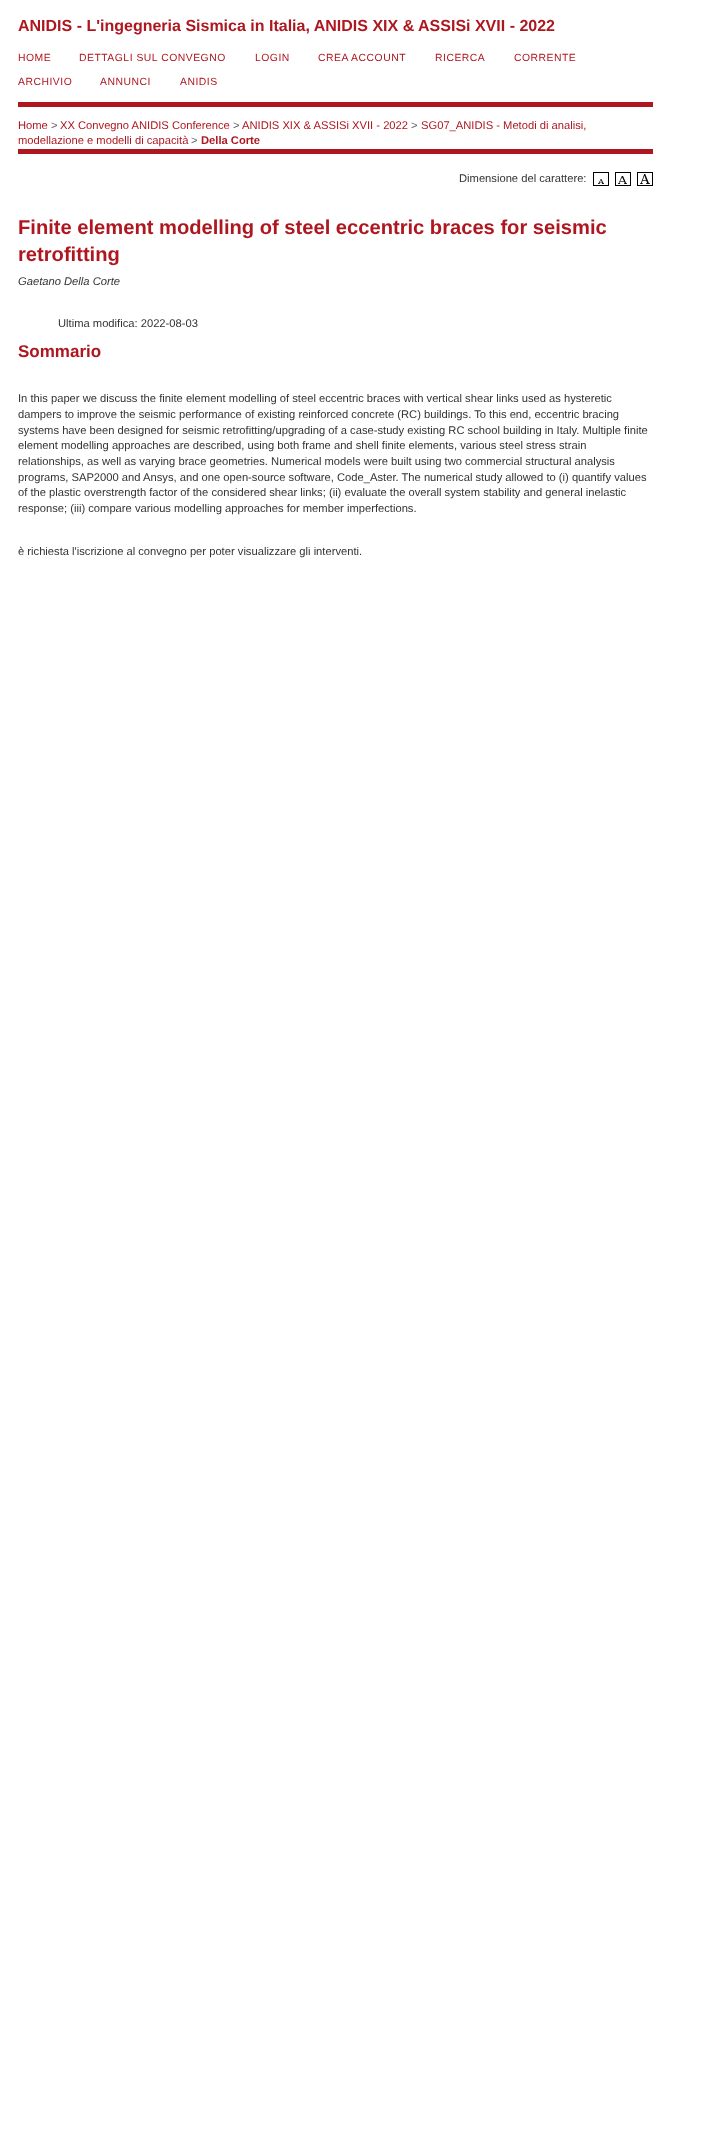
(async () => {
const canvas = document.querySelector("canvas")
canvas.width = 704
canvas.height = 2136
const c = canvas.getContext("2d")
c.miterLimit = 4
c.fontKerning = "normal"
function T(s,x,y){c.fillText(s,x,y)}
function R(x,y,w,h){c.fillRect(x,y,w,h)}
async function I(src,x,y,w,h){const img=new Image();img.src=src;await img.decode();c.drawImage(img,x,y,w,h)}
c.fillStyle="#fff"
R(0,0,704,2136)
c.font="bold 16px Liberation Sans"
c.fillStyle="#ae171f"
T("ANIDIS - L'ingegneria Sismica in Italia, ANIDIS XIX & ASSISi XVII - 2022",18,31)
R(18,102,635,5)
c.letterSpacing="0.5px"
c.font="10.4px Liberation Sans"
T("HOME",18,61)
T("DETTAGLI SUL CONVEGNO",79,61)
T("LOGIN",255,61)
T("CREA ACCOUNT",318,61)
T("RICERCA",435,61)
T("CORRENTE",514,61)
T("ARCHIVIO",18,85)
T("ANNUNCI",100,85)
T("ANIDIS",180,85)
c.letterSpacing="0px"
c.font="11.2px Liberation Sans"
T("Home",18,129)
c.fillStyle="#666"
T(">",51,129)
c.fillStyle="#ae171f"
T("XX Convegno ANIDIS Conference",60,129)
c.fillStyle="#666"
T(">",233,129)
c.fillStyle="#ae171f"
T("ANIDIS XIX & ASSISi XVII - 2022",242,129)
c.fillStyle="#666"
T(">",411,129)
c.fillStyle="#ae171f"
T("SG07_ANIDIS - Metodi di analisi,",421,129)
T("modellazione e modelli di capacità",18,144)
c.fillStyle="#666"
T(">",191,144)
c.font="bold 11.2px Liberation Sans"
c.fillStyle="#ae171f"
T("Della Corte",201,144)
R(18,149,635,5)
c.font="11.2px Liberation Sans"
c.fillStyle="#333"
T("Dimensione del carattere:",459,182)
await I("1.png",593,172,16,14)
await I("2.png",615,172,16,14)
await I("3.png",637,172,16,14)
c.font="bold 20.15px Liberation Sans"
c.fillStyle="#ae171f"
T("Finite element modelling of steel eccentric braces for seismic",18,234)
T("retrofitting",18,261)
c.font="italic 11.2px Liberation Sans"
c.fillStyle="#333"
T("Gaetano Della Corte",18,285)
c.font="11.2px Liberation Sans"
T("Ultima modifica: 2022-08-03",58,327)
c.font="bold 17px Liberation Sans"
c.fillStyle="#ae171f"
T("Sommario",18,357)
c.font="11.2px Liberation Sans"
c.fillStyle="#333"
T("In this paper we discuss the finite element modelling of steel eccentric braces with vertical shear links used as hysteretic",18,402)
T("dampers to improve the seismic performance of existing reinforced concrete (RC) buildings. To this end, eccentric bracing",18,418)
T("systems have been designed for seismic retrofitting/upgrading of a case-study existing RC school building in Italy. Multiple finite",18,434)
T("element modelling approaches are described, using both frame and shell finite elements, various steel stress strain",18,449)
T("relationships, as well as varying brace geometries. Numerical models were built using two commercial structural analysis",18,465)
T("programs, SAP2000 and Ansys, and one open-source software, Code_Aster. The numerical study allowed to (i) quantify values",18,481)
T("of the plastic overstrength factor of the considered shear links; (ii) evaluate the overall system stability and general inelastic",18,496)
T("response; (iii) compare various modelling approaches for member imperfections.",18,512)
T("è richiesta l'iscrizione al convegno per poter visualizzare gli interventi.",18,555)
})()
